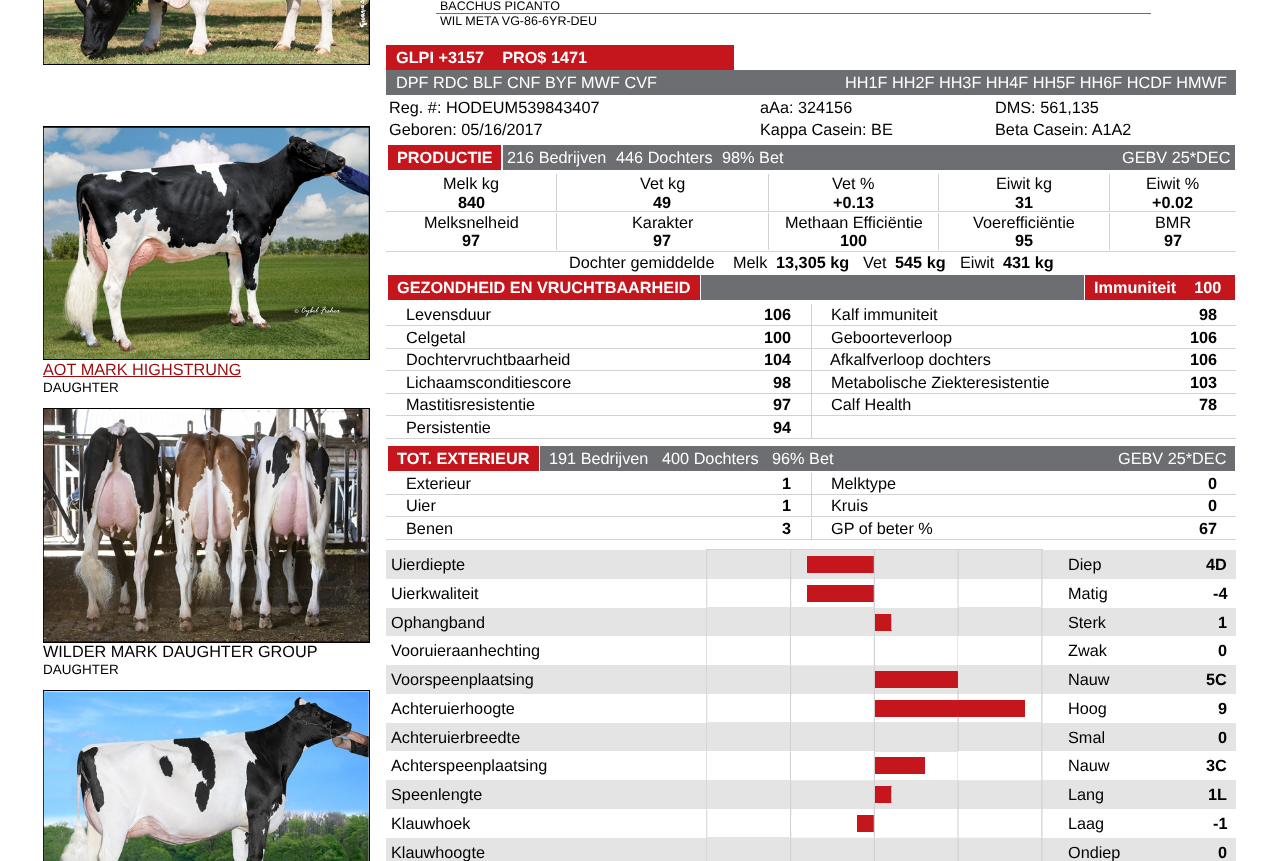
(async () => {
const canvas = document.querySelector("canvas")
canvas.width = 1274
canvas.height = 861
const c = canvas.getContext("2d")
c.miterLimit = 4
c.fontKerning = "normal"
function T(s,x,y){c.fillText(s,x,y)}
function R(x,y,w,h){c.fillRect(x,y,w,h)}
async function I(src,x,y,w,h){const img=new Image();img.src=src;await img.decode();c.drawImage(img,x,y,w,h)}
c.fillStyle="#fff"
R(0,0,1274,861)
c.fillStyle="#000"
R(43,0,327,65)
await I("1.png",43,0,326,64)
R(43,126,327,234)
await I("2.png",43,127,326,232)
c.font="16.25px Liberation Sans"
c.fillStyle="#9d0b0e"
T("AOT MARK HIGHSTRUNG",43,375)
R(43,376,198,1)
c.font="13.5px Liberation Sans"
c.fillStyle="#000"
T("DAUGHTER",43,392)
R(43,408,327,235)
await I("3.png",43,409,326,233)
c.font="16.25px Liberation Sans"
T("WILDER MARK DAUGHTER GROUP",43,657)
c.font="13.5px Liberation Sans"
T("DAUGHTER",43,674)
R(43,690,327,171)
c.fillStyle="#fff"
R(44,691,325,170)
await I("4.png",43,691,326,170)
c.font="12.5px Liberation Sans"
c.fillStyle="#000"
T("BACCHUS PICANTO",440,10)
c.fillStyle="#6f6e70"
R(436,13,715,1)
c.fillStyle="#000"
T("WIL META VG-86-6YR-DEU",440,25)
c.fillStyle="#c4161c"
R(386,45,348,25)
c.font="bold 16.25px Liberation Sans"
c.fillStyle="#fff"
T("GLPI +3157    PRO$ 1471",396,63)
c.fillStyle="#6d6e71"
R(386,70,850,25)
c.font="16.25px Liberation Sans"
c.fillStyle="#fff"
T("DPF RDC BLF CNF BYF MWF CVF",396,88)
T("HH1F HH2F HH3F HH4F HH5F HH6F HCDF HMWF",845,88)
c.fillStyle="#000"
T("Reg. #: HODEUM539843407",389,113)
T("aAa: 324156",760,113)
T("DMS: 561,135",995,113)
T("Geboren: 05/16/2017",389,135)
T("Kappa Casein: BE",760,135)
T("Beta Casein: A1A2",995,135)
c.fillStyle="#c4161c"
R(388,145,113,25)
c.font="bold 16.25px Liberation Sans"
c.fillStyle="#fff"
T("PRODUCTIE",397,163)
c.fillStyle="#6d6e71"
R(503,145,732,25)
c.font="16.25px Liberation Sans"
c.fillStyle="#fff"
T("216 Bedrijven",507,163)
T("446 Dochters",616,163)
T("98% Bet",722,163)
T("GEBV 25*DEC",1122,163)
c.fillStyle="#000"
T("Melk kg",443,189)
c.font="bold 16.25px Liberation Sans"
T("840",458,208)
c.fillStyle="#d1d2d4"
R(556,174,1,37)
c.font="16.25px Liberation Sans"
c.fillStyle="#000"
T("Vet kg",640,189)
c.font="bold 16.25px Liberation Sans"
T("49",653,208)
c.fillStyle="#d1d2d4"
R(768,174,1,37)
c.font="16.25px Liberation Sans"
c.fillStyle="#000"
T("Vet %",832,189)
c.font="bold 16.25px Liberation Sans"
T("+0.13",833,208)
c.fillStyle="#d1d2d4"
R(938,174,1,37)
c.font="16.25px Liberation Sans"
c.fillStyle="#000"
T("Eiwit kg",996,189)
c.font="bold 16.25px Liberation Sans"
T("31",1015,208)
c.fillStyle="#d1d2d4"
R(1109,174,1,37)
c.font="16.25px Liberation Sans"
c.fillStyle="#000"
T("Eiwit %",1146,189)
c.font="bold 16.25px Liberation Sans"
T("+0.02",1152,208)
c.fillStyle="#d1d2d4"
R(386,211,850,1)
c.font="16.25px Liberation Sans"
c.fillStyle="#000"
T("Melksnelheid",424,228)
c.font="bold 16.25px Liberation Sans"
T("97",462,246)
c.fillStyle="#d1d2d4"
R(556,213,1,37)
c.font="16.25px Liberation Sans"
c.fillStyle="#000"
T("Karakter",632,228)
c.font="bold 16.25px Liberation Sans"
T("97",653,246)
c.fillStyle="#d1d2d4"
R(768,213,1,37)
c.font="16.25px Liberation Sans"
c.fillStyle="#000"
T("Methaan Efficiëntie",785,228)
c.font="bold 16.25px Liberation Sans"
T("100",840,246)
c.fillStyle="#d1d2d4"
R(938,213,1,37)
c.font="16.25px Liberation Sans"
c.fillStyle="#000"
T("Voerefficiëntie",973,228)
c.font="bold 16.25px Liberation Sans"
T("95",1015,246)
c.fillStyle="#d1d2d4"
R(1109,213,1,37)
c.font="16.25px Liberation Sans"
c.fillStyle="#000"
T("BMR",1155,228)
c.font="bold 16.25px Liberation Sans"
T("97",1164,246)
c.fillStyle="#d1d2d4"
R(386,251,850,1)
c.font="16.25px Liberation Sans"
c.fillStyle="#000"
T("Dochter gemiddelde",569,268)
T("Melk",733,268)
c.font="bold 16.25px Liberation Sans"
T("13,305 kg",776,268)
c.font="16.25px Liberation Sans"
T("Vet",863,268)
c.font="bold 16.25px Liberation Sans"
T("545 kg",895,268)
c.font="16.25px Liberation Sans"
T("Eiwit",960,268)
c.font="bold 16.25px Liberation Sans"
T("431 kg",1003,268)
c.fillStyle="#c4161c"
R(388,275,312,25)
c.fillStyle="#fff"
T("GEZONDHEID EN VRUCHTBAARHEID",397,293)
c.fillStyle="#6d6e71"
R(701,275,383,25)
c.fillStyle="#c4161c"
R(1085,275,150,25)
c.fillStyle="#fff"
T("Immuniteit    100",1094,293)
c.font="16.25px Liberation Sans"
c.fillStyle="#000"
T("Levensduur",406,320)
c.font="bold 16.25px Liberation Sans"
T("106",764,320)
c.fillStyle="#d1d2d4"
R(811,304,1,21)
c.font="16.25px Liberation Sans"
c.fillStyle="#000"
T("Kalf immuniteit",831,320)
c.font="bold 16.25px Liberation Sans"
T("98",1199,320)
c.fillStyle="#d1d2d4"
R(386,325,850,1)
c.font="16.25px Liberation Sans"
c.fillStyle="#000"
T("Celgetal",406,343)
c.font="bold 16.25px Liberation Sans"
T("100",764,343)
c.fillStyle="#d1d2d4"
R(811,326,1,22)
c.font="16.25px Liberation Sans"
c.fillStyle="#000"
T("Geboorteverloop",831,343)
c.font="bold 16.25px Liberation Sans"
T("106",1190,343)
c.fillStyle="#d1d2d4"
R(386,348,850,1)
c.font="16.25px Liberation Sans"
c.fillStyle="#000"
T("Dochtervruchtbaarheid",406,365)
c.font="bold 16.25px Liberation Sans"
T("104",764,365)
c.fillStyle="#d1d2d4"
R(811,349,1,21)
c.font="16.25px Liberation Sans"
c.fillStyle="#000"
T("Afkalfverloop dochters",830,365)
c.font="bold 16.25px Liberation Sans"
T("106",1190,365)
c.fillStyle="#d1d2d4"
R(386,370,850,1)
c.font="16.25px Liberation Sans"
c.fillStyle="#000"
T("Lichaamsconditiescore",406,388)
c.font="bold 16.25px Liberation Sans"
T("98",773,388)
c.fillStyle="#d1d2d4"
R(811,371,1,22)
c.font="16.25px Liberation Sans"
c.fillStyle="#000"
T("Metabolische Ziekteresistentie",831,388)
c.font="bold 16.25px Liberation Sans"
T("103",1190,388)
c.fillStyle="#d1d2d4"
R(386,393,850,1)
c.font="16.25px Liberation Sans"
c.fillStyle="#000"
T("Mastitisresistentie",406,410)
c.font="bold 16.25px Liberation Sans"
T("97",773,410)
c.fillStyle="#d1d2d4"
R(811,394,1,21)
c.font="16.25px Liberation Sans"
c.fillStyle="#000"
T("Calf Health",831,410)
c.font="bold 16.25px Liberation Sans"
T("78",1199,410)
c.fillStyle="#d1d2d4"
R(386,415,850,1)
c.font="16.25px Liberation Sans"
c.fillStyle="#000"
T("Persistentie",406,433)
c.font="bold 16.25px Liberation Sans"
T("94",773,433)
c.fillStyle="#d1d2d4"
R(811,416,1,22)
R(386,438,850,1)
c.fillStyle="#c4161c"
R(388,446,151,25)
c.fillStyle="#fff"
T("TOT. EXTERIEUR",397,464)
c.fillStyle="#6d6e71"
R(540,446,695,25)
c.font="16.25px Liberation Sans"
c.fillStyle="#fff"
T("191 Bedrijven",549,464)
T("400 Dochters",662,464)
T("96% Bet",772,464)
T("GEBV 25*DEC",1118,464)
c.fillStyle="#000"
T("Exterieur",406,489)
c.font="bold 16.25px Liberation Sans"
T("1",782,489)
c.fillStyle="#d1d2d4"
R(811,473,1,21)
c.font="16.25px Liberation Sans"
c.fillStyle="#000"
T("Melktype",831,489)
c.font="bold 16.25px Liberation Sans"
T("0",1208,489)
c.fillStyle="#d1d2d4"
R(386,494,850,1)
c.font="16.25px Liberation Sans"
c.fillStyle="#000"
T("Uier",406,511)
c.font="bold 16.25px Liberation Sans"
T("1",782,511)
c.fillStyle="#d1d2d4"
R(811,495,1,21)
c.font="16.25px Liberation Sans"
c.fillStyle="#000"
T("Kruis",831,511)
c.font="bold 16.25px Liberation Sans"
T("0",1208,511)
c.fillStyle="#d1d2d4"
R(386,516,850,1)
c.font="16.25px Liberation Sans"
c.fillStyle="#000"
T("Benen",406,534)
c.font="bold 16.25px Liberation Sans"
T("3",782,534)
c.fillStyle="#d1d2d4"
R(811,518,1,21)
c.font="16.25px Liberation Sans"
c.fillStyle="#000"
T("GP of beter %",831,534)
c.font="bold 16.25px Liberation Sans"
T("67",1199,534)
c.fillStyle="#d1d2d4"
R(386,539,850,1)
R(706,549,337,1)
c.fillStyle="#e4e4e4"
R(386,550,850,29)
c.font="16.25px Liberation Sans"
c.fillStyle="#000"
T("Uierdiepte",391,570)
await I("5.png",706,550,2,29)
await I("6.png",790,550,2,29)
c.fillStyle="#dfdfdf"
R(707,551,1,28)
c.fillStyle="#c4161c"
R(807,556,67,17)
await I("7.png",873,550,2,29)
await I("8.png",957,550,2,29)
await I("5.png",1041,550,2,29)
c.fillStyle="#000"
T("Diep",1068,570)
c.font="bold 16.25px Liberation Sans"
T("4D",1206,570)
c.font="16.25px Liberation Sans"
T("Uierkwaliteit",391,599)
await I("9.png",706,579,2,29)
await I("10.png",707,579,1,28)
await I("11.png",790,579,2,29)
await I("12.png",791,585,1,17)
c.fillStyle="#c4161c"
R(807,585,67,17)
await I("13.png",873,579,2,29)
await I("14.png",957,579,2,29)
await I("15.png",958,579,1,29)
await I("9.png",1041,579,2,29)
c.fillStyle="#000"
T("Matig",1068,599)
c.font="bold 16.25px Liberation Sans"
T("-4",1213,599)
c.fillStyle="#e4e4e4"
R(386,608,850,28)
c.font="16.25px Liberation Sans"
c.fillStyle="#000"
T("Ophangband",391,628)
await I("16.png",706,607,1,30)
c.fillStyle="#e4e4e4"
R(707,607,83,1)
await I("17.png",790,608,1,29)
R(791,607,83,1)
await I("18.png",873,608,2,29)
c.fillStyle="#c4161c"
R(875,614,17,17)
await I("19.png",957,607,2,30)
await I("20.png",891,614,1,17)
c.fillStyle="#e4e4e4"
R(959,607,82,1)
await I("21.png",1041,608,2,29)
c.fillStyle="#000"
T("Sterk",1068,628)
c.font="bold 16.25px Liberation Sans"
T("1",1218,628)
c.font="16.25px Liberation Sans"
T("Vooruieraanhechting",391,656)
await I("22.png",706,636,1,29)
c.fillStyle="#e4e4e4"
R(386,665,850,29)
await I("23.png",790,636,1,30)
c.fillStyle="#fff"
R(791,636,83,30)
await I("24.png",873,636,2,30)
await I("25.png",957,636,1,29)
c.fillStyle="#ebebeb"
R(875,665,82,1)
c.fillStyle="#fff"
R(958,636,1,1)
await I("26.png",1041,636,2,29)
c.fillStyle="#000"
T("Zwak",1068,656)
c.font="bold 16.25px Liberation Sans"
T("0",1218,656)
c.font="16.25px Liberation Sans"
T("Voorspeenplaatsing",391,685)
await I("27.png",706,665,1,29)
await I("28.png",790,665,2,29)
await I("29.png",791,665,83,1)
await I("30.png",873,665,2,29)
c.fillStyle="#c4161c"
R(875,671,83,17)
await I("31.png",957,665,1,7)
await I("32.png",957,671,1,17)
await I("33.png",957,687,2,7)
c.fillStyle="#e4e4e4"
R(958,687,1,1)
await I("5.png",1041,665,2,29)
c.fillStyle="#000"
T("Nauw",1068,685)
c.font="bold 16.25px Liberation Sans"
T("5C",1206,685)
c.font="16.25px Liberation Sans"
T("Achteruierhoogte",391,714)
await I("9.png",706,694,2,29)
await I("10.png",707,694,1,28)
await I("11.png",790,694,2,29)
await I("34.png",791,694,1,28)
await I("35.png",873,694,2,29)
c.fillStyle="#c4161c"
R(875,700,83,17)
await I("36.png",957,694,2,7)
await I("37.png",957,700,1,17)
await I("38.png",957,716,2,7)
R(958,700,67,17)
await I("9.png",1041,694,2,29)
c.fillStyle="#000"
T("Hoog",1068,714)
c.font="bold 16.25px Liberation Sans"
T("9",1218,714)
c.fillStyle="#e4e4e4"
R(386,723,850,28)
c.font="16.25px Liberation Sans"
c.fillStyle="#000"
T("Achteruierbreedte",391,743)
await I("16.png",706,722,1,30)
c.fillStyle="#e4e4e4"
R(707,722,83,1)
await I("17.png",790,723,1,29)
R(791,722,83,1)
await I("18.png",873,723,2,29)
R(875,722,83,30)
await I("39.png",957,723,2,29)
R(959,722,82,1)
await I("21.png",1041,723,2,29)
c.fillStyle="#000"
T("Smal",1068,743)
c.font="bold 16.25px Liberation Sans"
T("0",1218,743)
c.font="16.25px Liberation Sans"
T("Achterspeenplaatsing",391,771)
await I("22.png",706,751,1,29)
c.fillStyle="#e4e4e4"
R(386,780,850,29)
await I("23.png",790,751,1,30)
c.fillStyle="#fff"
R(791,751,83,30)
await I("24.png",873,751,2,30)
c.fillStyle="#c4161c"
R(875,757,50,17)
await I("40.png",957,751,1,29)
c.fillStyle="#fff"
R(958,751,83,30)
await I("26.png",1041,751,2,29)
c.fillStyle="#000"
T("Nauw",1068,771)
c.font="bold 16.25px Liberation Sans"
T("3C",1206,771)
c.font="16.25px Liberation Sans"
T("Speenlengte",391,800)
await I("27.png",706,780,1,29)
await I("28.png",790,780,2,29)
await I("29.png",791,780,83,1)
await I("30.png",873,780,2,29)
c.fillStyle="#c4161c"
R(875,786,17,17)
await I("41.png",957,780,2,29)
await I("42.png",891,786,1,17)
c.fillStyle="#eaeaea"
R(959,780,82,1)
await I("5.png",1041,780,2,29)
c.fillStyle="#000"
T("Lang",1068,800)
c.font="bold 16.25px Liberation Sans"
T("1L",1208,800)
c.font="16.25px Liberation Sans"
T("Klauwhoek",391,829)
await I("9.png",706,809,2,29)
await I("10.png",707,809,1,28)
await I("11.png",790,809,2,29)
await I("12.png",791,815,1,17)
c.fillStyle="#c4161c"
R(857,815,17,17)
await I("13.png",873,809,2,29)
await I("14.png",957,809,2,29)
await I("15.png",958,809,1,29)
await I("9.png",1041,809,2,29)
c.fillStyle="#000"
T("Laag",1068,829)
c.font="bold 16.25px Liberation Sans"
T("-1",1213,829)
c.fillStyle="#e4e4e4"
R(386,838,850,23)
c.font="16.25px Liberation Sans"
c.fillStyle="#000"
T("Klauwhoogte",391,858)
await I("43.png",706,837,1,24)
c.fillStyle="#e4e4e4"
R(707,837,83,1)
await I("44.png",790,838,2,23)
c.fillStyle="#f8f8f8"
R(792,837,81,1)
await I("45.png",873,838,2,23)
R(875,837,82,1)
await I("46.png",957,837,2,24)
R(959,837,82,1)
await I("47.png",1041,838,2,23)
c.fillStyle="#000"
T("Ondiep",1068,858)
c.font="bold 16.25px Liberation Sans"
T("0",1218,858)
})()
